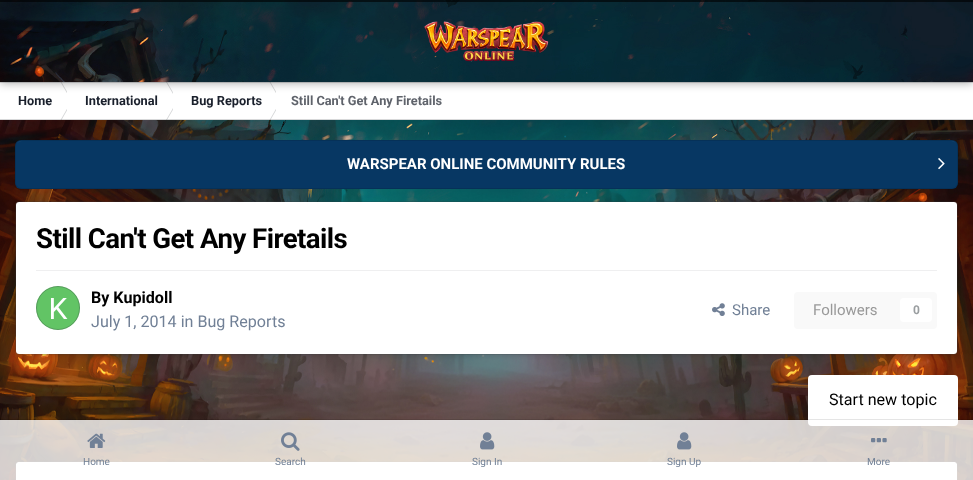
(async () => {
const canvas = document.querySelector("canvas")
canvas.width = 973
canvas.height = 480
const c = canvas.getContext("2d")
c.miterLimit = 4
c.fontKerning = "normal"
function T(s,x,y){c.fillText(s,x,y)}
function R(x,y,w,h){c.fillRect(x,y,w,h)}
function Q(x,y,w,h,r){c.beginPath();c.roundRect(x,y,w,h,r);c.fill()}
async function I(src,x,y,w,h){const img=new Image();img.src=src;await img.decode();c.drawImage(img,x,y,w,h)}
let path
c.fillStyle="#fff"
R(0,0,973,480)
await I("1.png",0,120,973,360)
c.save()
c.beginPath()
c.rect(0,82,67,38)
c.clip()
c.fillStyle="#d7d8d9"
path = new Path2D("M60.5 82h1l11 19h-1zm0 38h1l11-19h-1z")
c.fill(path)
c.restore()
c.save()
c.beginPath()
c.rect(67,82,106,38)
c.clip()
c.fillStyle="#d7d8d9"
path = new Path2D("M166 82h1l11 19h-1zm0 38h1l11-19h-1z")
c.fill(path)
c.restore()
c.save()
c.beginPath()
c.rect(173,82,103,38)
c.clip()
c.fillStyle="#d7d8d9"
path = new Path2D("M269.5 82h1l11 19h-1zm0 38h1l11-19h-1z")
c.fill(path)
c.restore()
c.fillStyle="#353c4133"
R(0,82,973,1)
c.fillStyle="#00000059"
c.filter="blur(5px)"
c.beginPath()
c.rect(0,-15,973,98)
c.fill()
c.filter="none"
await I("2.png",0,0,973,82)
c.fillStyle="#00000099"
R(0,0,973,2)
await I("3.png",424,21,125,41)
c.fillStyle="#353c4133"
R(0,119,973,1)
c.font="bold 12.75px Roboto"
c.fillStyle="#1a202c"
T("Home",18,105)
T("International",85,105)
T("Bug Reports",191,105)
c.fillStyle="#5f636b"
T("Still Can't Get Any Firetails",291,105)
c.fillStyle="#073763"
Q(15,140,943,49,6)
c.fillStyle="#204b73"
path = new Path2D("M21 142h931c3 0 5 2 5 5c0-3-2-6-5-6h-931c-3 0-5 3-5 6c0-3 2-5 5-5z")
c.fill(path)
c.beginPath()
c.roundRect(15.5,140.5,942,48,5.5)
c.strokeStyle="#0000001a"
c.stroke()
c.fillStyle="#073763"
Q(16,141,941,47,6)
c.font="bold 15px Roboto"
c.fillStyle="#fff"
T("WARSPEAR ONLINE COMMUNITY RULES",347,169)
await I("4.png",938,158,7,12)
c.fillStyle="#0000001a"
c.filter="blur(2px)"
c.beginPath()
c.roundRect(16,204,941,152,3)
c.fill()
c.filter="none"
c.fillStyle="#fff"
Q(16,202,941,152,3)
c.beginPath()
c.roundRect(15.5,201.5,942,153,3.5)
c.strokeStyle="#353c4133"
c.stroke()
c.letterSpacing="-0.55px"
c.font="bold 27.6px Roboto"
c.fillStyle="#000"
T("Still Can't Get Any Firetails",36,248)
c.fillStyle="#efeff0"
R(36,270,901,1)
await I("5.png",36,286,44,44)
c.beginPath()
c.arc(58,308,21.5,0,7)
c.strokeStyle="#353c414d"
c.stroke()
c.letterSpacing="0px"
c.font="bold 16.1px Roboto"
c.fillStyle="#000"
T("By Kupidoll",91,303)
c.font="16.1px Roboto"
c.fillStyle="#718096"
T("July 1, 2014 in Bug Reports",91,327)
await I("6.png",712,303,13,13)
c.font="15px Roboto"
T("Share",732,315)
c.fillStyle="#f9f9f9"
Q(794,292,143,37,4)
c.fillStyle="#999"
T("Followers",813,315)
c.fillStyle="#fff"
Q(900,298,32,24,4)
c.font="bold 12px Roboto"
c.fillStyle="#9a9ea0"
T("0",913,314)
c.fillStyle="#fff"
Q(808,375,150,51,4)
c.font="16.1px Roboto"
c.fillStyle="#000"
T("Start new topic",829,405)
c.fillStyle="#0000001a"
c.filter="blur(2px)"
c.beginPath()
c.roundRect(16,464,941,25,3)
c.fill()
c.filter="none"
c.fillStyle="#fff"
Q(16,462,941,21,3)
c.beginPath()
c.roundRect(15.5,461.5,942,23,3.5)
c.strokeStyle="#353c4133"
c.stroke()
path = new Path2D("M20 462h933c2 0 4 2 4 4v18h-941v-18c0-2 2-4 4-4z")
c.fill(path)
c.fillStyle="#0000001a"
R(0,419,973,1)
c.fillStyle="#ffffffcc"
R(0,420,973,60)
await I("7.png",87,433,19,15)
c.font="10px Roboto"
c.fillStyle="#718096"
T("Home",83,465)
await I("8.png",281,432,19,19)
T("Search",275,465)
await I("9.png",480,432,15,18)
T("Sign In",472,465)
await I("10.png",677,432,15,18)
T("Sign Up",667,465)
await I("11.png",871,438,16,5)
T("More",867,465)
})()
